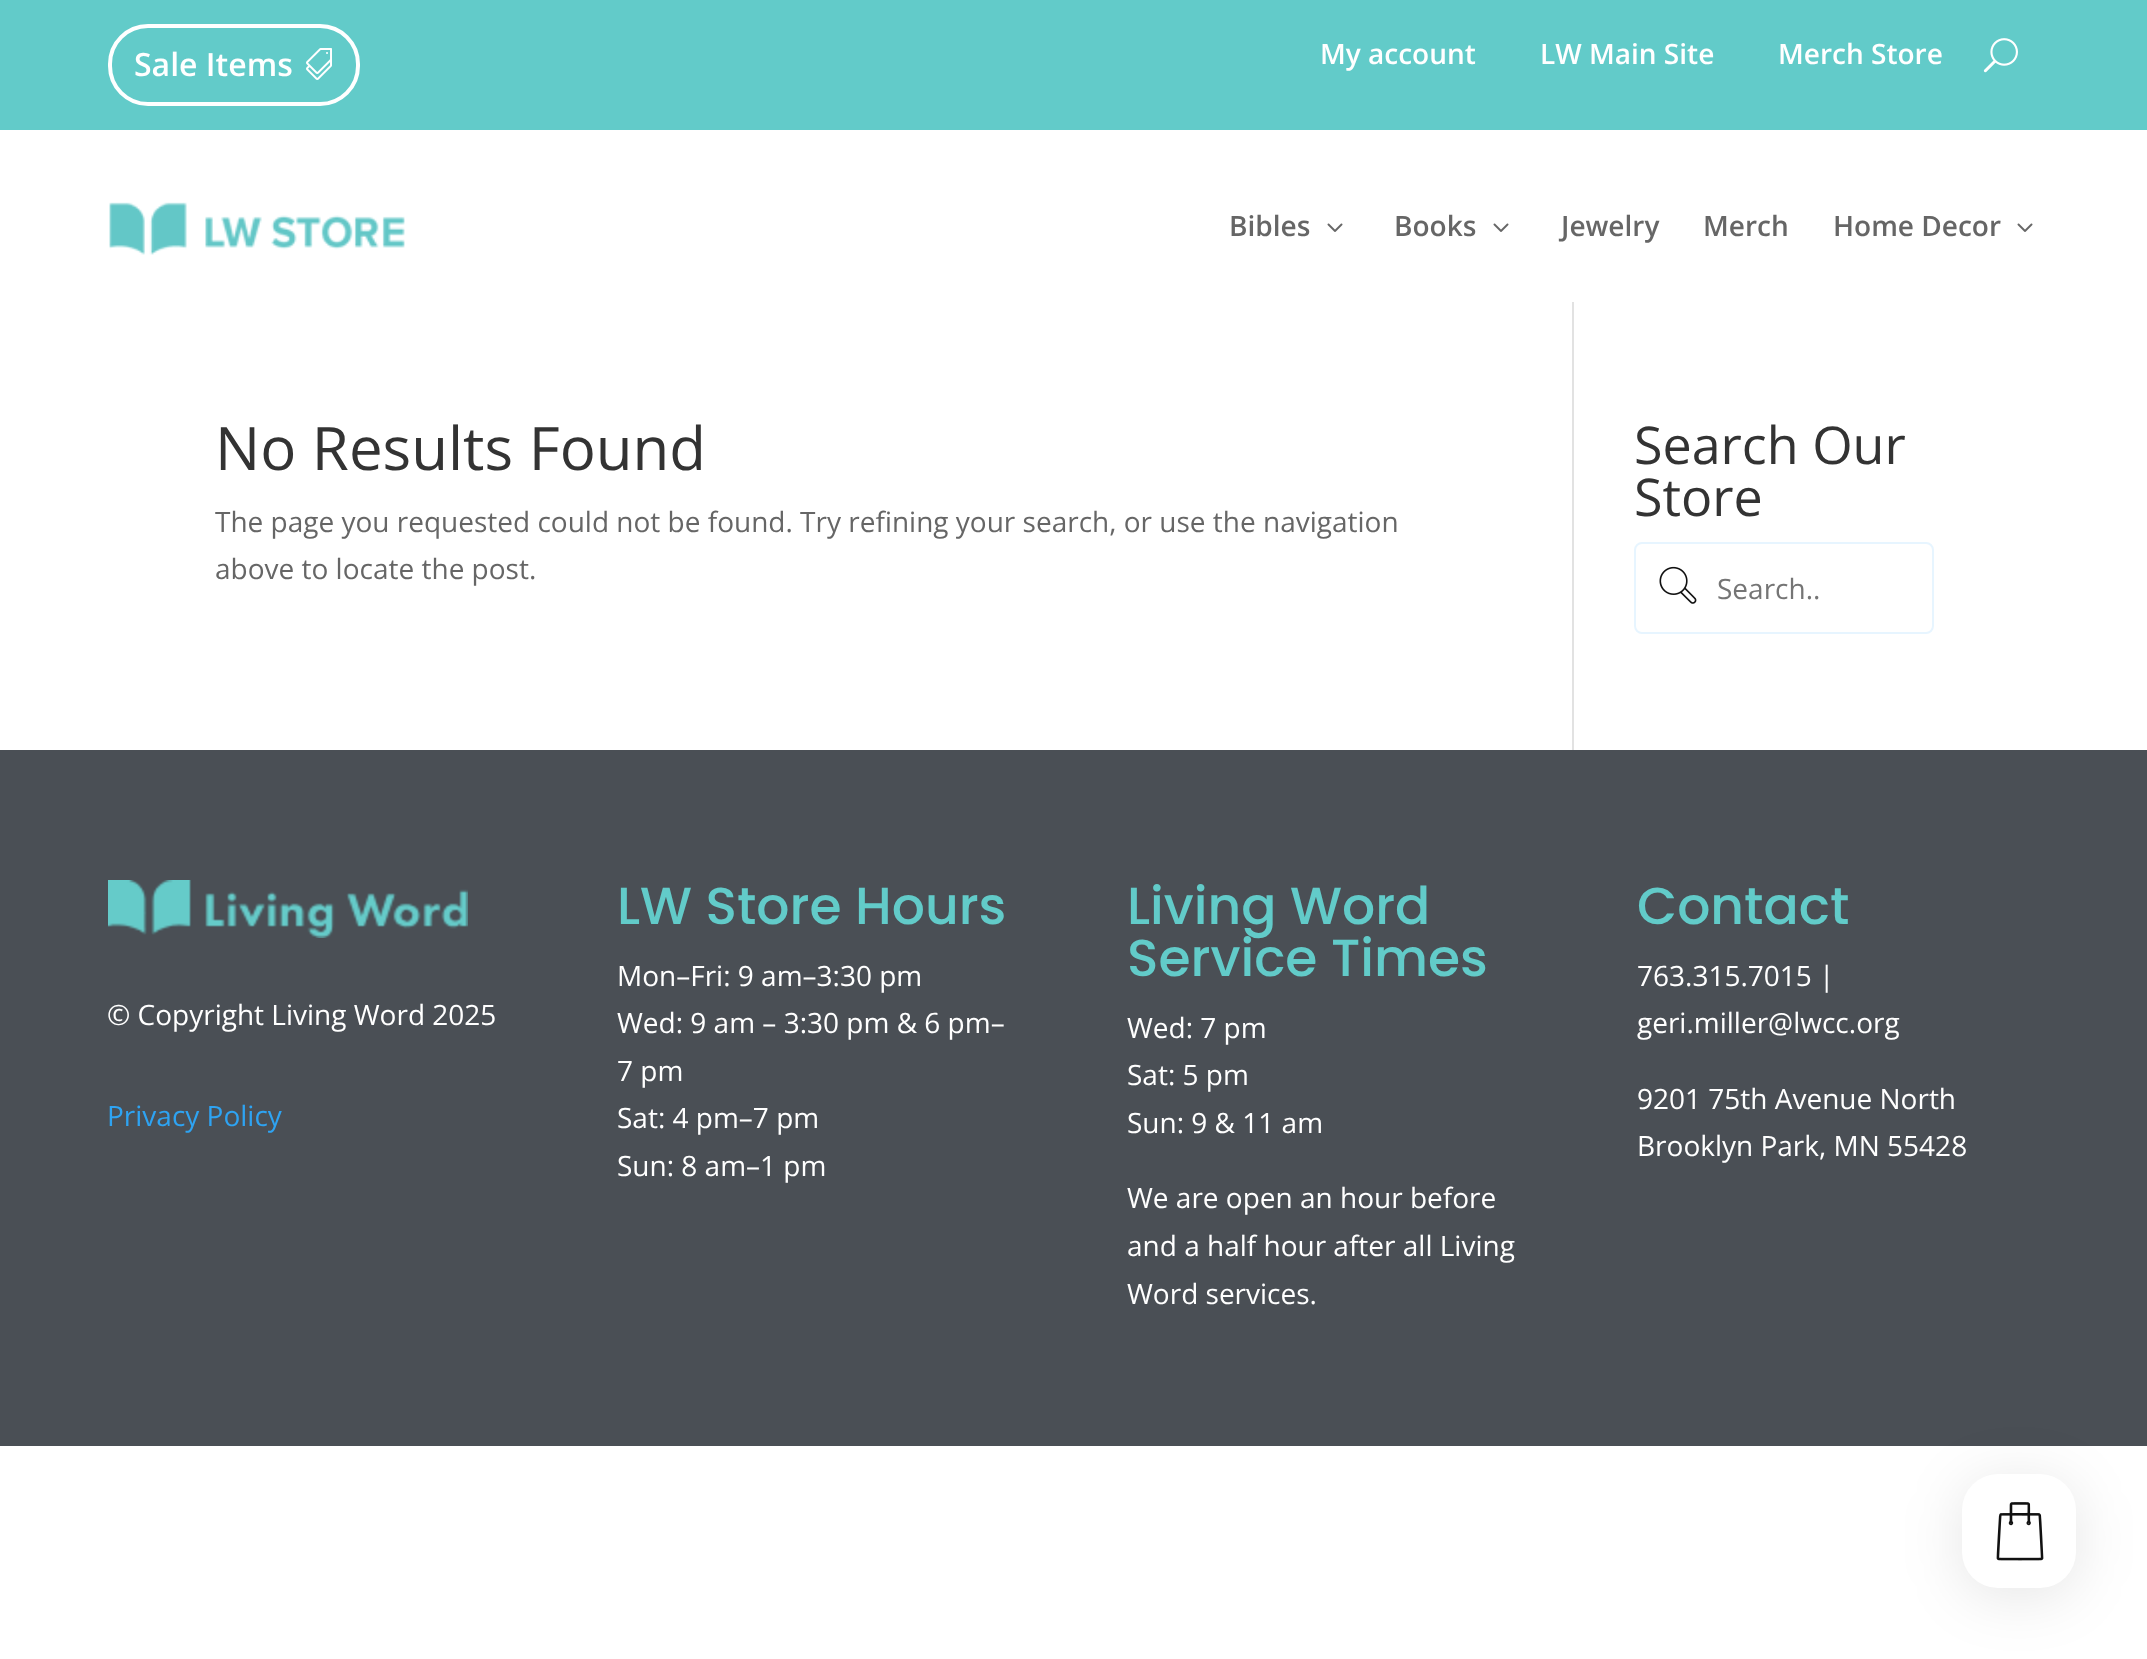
(async () => {
const canvas = document.querySelector("canvas")
canvas.width = 2147
canvas.height = 1659
const c = canvas.getContext("2d")
c.miterLimit = 4
c.fontKerning = "normal"
function T(s,x,y){c.fillText(s,x,y)}
function R(x,y,w,h){c.fillRect(x,y,w,h)}
function Q(x,y,w,h,r){c.beginPath();c.roundRect(x,y,w,h,r);c.fill()}
async function I(src,x,y,w,h){const img=new Image();img.src=src;await img.decode();c.drawImage(img,x,y,w,h)}
c.fillStyle="#fff"
R(0,0,2147,1659)
c.fillStyle="#62cbc9"
R(0,0,2147,130)
c.beginPath()
c.roundRect(110,26,248,78,38)
c.strokeStyle="#fff"
c.lineWidth=4
c.stroke()
c.font="600 32px Open Sans"
c.fillStyle="#fff"
T("Sale Items",134,76)
await I("1.png",306,48,26,32)
c.font="600 28px Open Sans"
T("My account",1320,64)
T("LW Main Site",1540,64)
T("Merch Store",1778,64)
await I("2.png",1983,38,35,35)
await I("3.png",109,202,296,53)
c.fillStyle="#666"
T("Bibles",1229,236)
await I("4.png",1327,223,16,9)
T("Books",1394,236)
await I("4.png",1493,223,16,9)
T("Jewelry",1561,236)
T("Merch",1703,236)
T("Home Decor",1833,236)
await I("4.png",2017,223,16,9)
c.fillStyle="#e2e2e2"
R(1572,302,2,448)
c.font="60px Open Sans"
c.fillStyle="#333"
T("No Results Found",215,470)
c.font="28px Open Sans"
c.fillStyle="#666"
T("The page you requested could not be found. Try refining your search, or use the navigation",215,532)
T("above to locate the post.",215,579)
c.font="52px Open Sans"
c.fillStyle="#333"
T("Search Our",1634,464)
T("Store",1634,516)
c.beginPath()
c.roundRect(1635,543,298,90,7)
c.strokeStyle="#e7f5ff"
c.lineWidth=2
c.stroke()
await I("5.png",1659,566,38,38)
c.font="28px Open Sans"
c.fillStyle="#757575"
T("Search..",1717,599)
c.fillStyle="#4a4f55"
R(0,750,2147,696)
await I("6.png",108,880,360,58)
c.fillStyle="#fff"
T("© Copyright Living Word 2025",107,1025)
c.fillStyle="#2ea3f2"
T("Privacy Policy",107,1126)
c.font="500 52px Poppins"
c.fillStyle="#62cbc9"
T("LW Store Hours",617,924)
c.font="28px Open Sans"
c.fillStyle="#fff"
T("Mon–Fri: 9 am–3:30 pm",617,986)
T("Wed: 9 am – 3:30 pm & 6 pm–",617,1033)
T("7 pm",617,1081)
T("Sat: 4 pm–7 pm",617,1128)
T("Sun: 8 am–1 pm",617,1176)
c.font="500 52px Poppins"
c.fillStyle="#62cbc9"
T("Living Word",1127,924)
T("Service Times",1127,976)
c.font="28px Open Sans"
c.fillStyle="#fff"
T("Wed: 7 pm",1127,1038)
T("Sat: 5 pm",1127,1085)
T("Sun: 9 & 11 am",1127,1133)
T("We are open an hour before",1127,1208)
T("and a half hour after all Living",1127,1256)
T("Word services.",1127,1304)
c.font="500 52px Poppins"
c.fillStyle="#62cbc9"
T("Contact",1637,924)
c.font="28px Open Sans"
c.fillStyle="#fff"
T("763.315.7015 |",1637,986)
T("geri.miller@lwcc.org",1637,1033)
T("9201 75th Avenue North",1637,1109)
T("Brooklyn Park, MN 55428",1637,1156)
c.fillStyle="#0000001a"
c.filter="blur(30px)"
c.beginPath()
c.roundRect(1962,1482,114,114,36)
c.fill()
c.filter="none"
c.fillStyle="#fff"
Q(1962,1474,114,114,36)
await I("7.png",1996,1502,48,59)
})()
